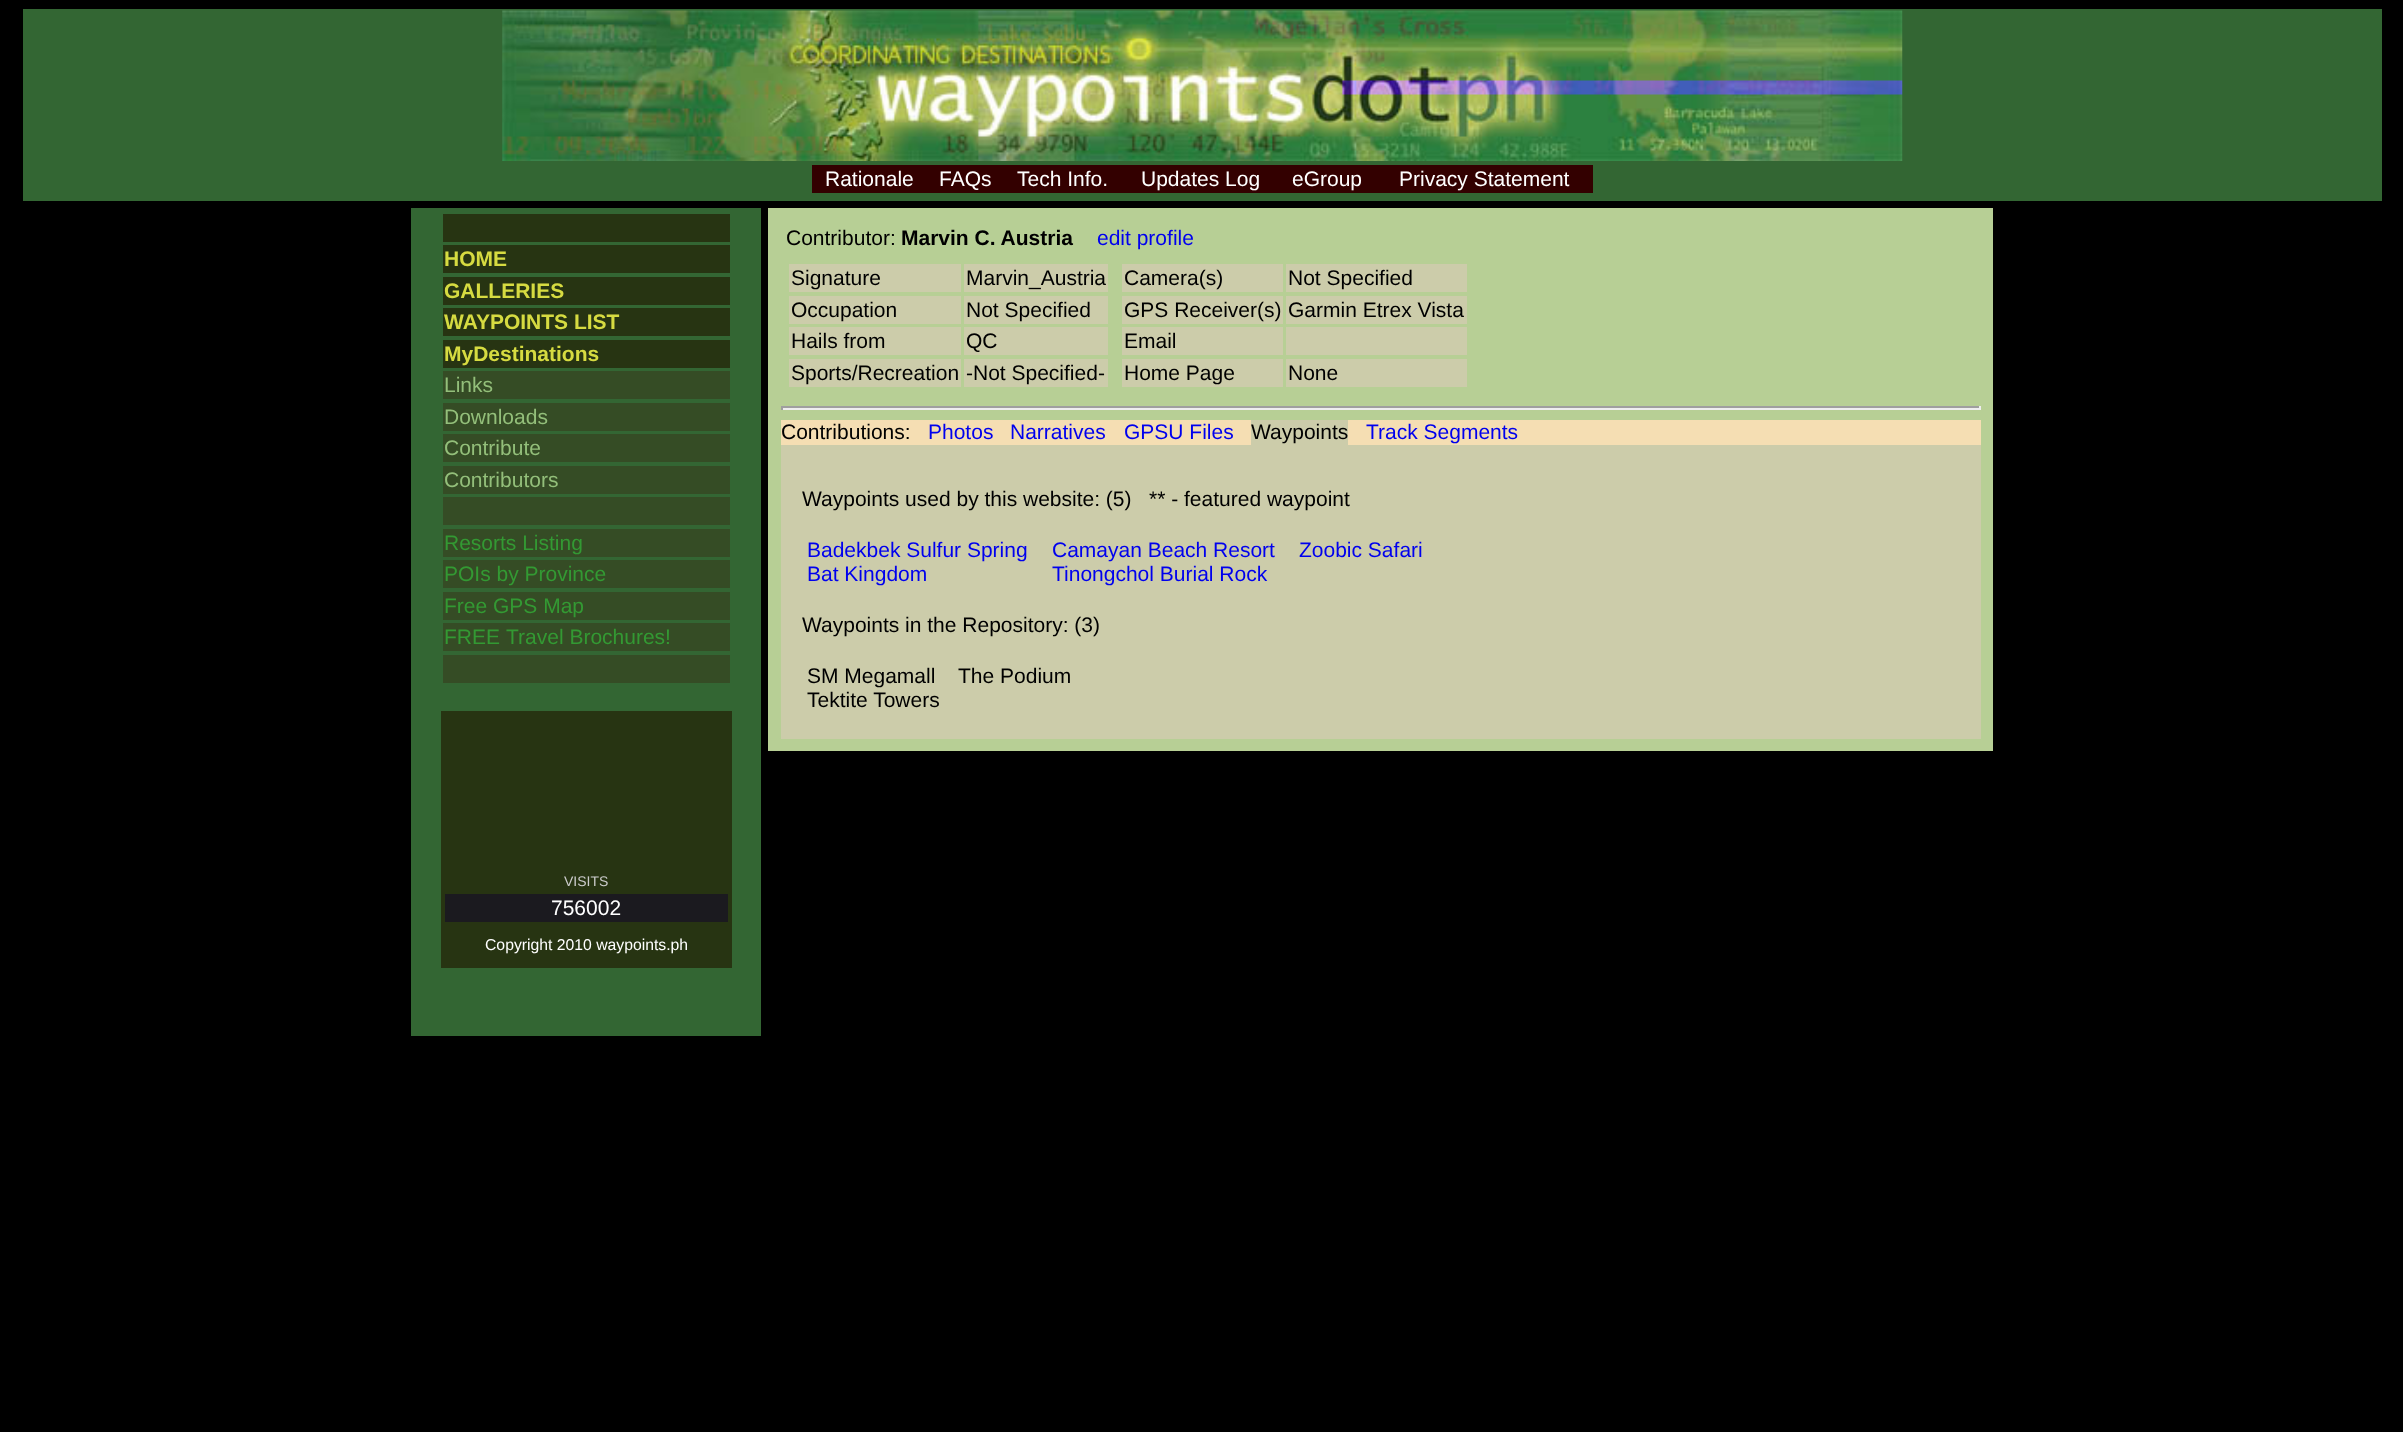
(async () => {
const canvas = document.querySelector("canvas")
canvas.width = 2403
canvas.height = 1432
const c = canvas.getContext("2d")
c.miterLimit = 4
c.fontKerning = "normal"
function T(s,x,y){c.fillText(s,x,y)}
function R(x,y,w,h){c.fillRect(x,y,w,h)}
async function I(src,x,y,w,h){const img=new Image();img.src=src;await img.decode();c.drawImage(img,x,y,w,h)}
c.fillStyle="#000"
R(0,0,2403,1432)
c.fillStyle="#363"
R(23,9,2359,192)
await I("1.png",502,10,1401,151)
c.fillStyle="#300"
R(812,165,781,28)
c.font="21px Liberation Sans"
c.fillStyle="#fff"
T("Rationale",825,186)
T("FAQs",939,186)
T("Tech Info.",1017,186)
T("Updates Log",1141,186)
T("eGroup",1292,186)
T("Privacy Statement",1399,186)
c.fillStyle="#363"
R(411,208,350,828)
c.fillStyle="#273412"
R(443,214,287,28)
R(443,245,287,28)
c.font="bold 21px Liberation Sans"
c.fillStyle="#d6db41"
T("HOME",444,266)
c.fillStyle="#273412"
R(443,277,287,28)
c.fillStyle="#d6db41"
T("GALLERIES",444,298)
c.fillStyle="#273412"
R(443,308,287,28)
c.fillStyle="#d6db41"
T("WAYPOINTS LIST",444,329)
c.fillStyle="#273412"
R(443,340,287,28)
c.fillStyle="#d6db41"
T("MyDestinations",444,361)
c.fillStyle="#354c25"
R(443,371,287,28)
c.font="21px Liberation Sans"
c.fillStyle="#93bf7a"
T("Links",444,392)
c.fillStyle="#354c25"
R(443,403,287,28)
c.fillStyle="#93bf7a"
T("Downloads",444,424)
c.fillStyle="#354c25"
R(443,434,287,28)
c.fillStyle="#93bf7a"
T("Contribute",444,455)
c.fillStyle="#354c25"
R(443,466,287,28)
c.fillStyle="#93bf7a"
T("Contributors",444,487)
c.fillStyle="#354c25"
R(443,497,287,28)
R(443,529,287,28)
c.fillStyle="#393"
T("Resorts Listing",444,550)
c.fillStyle="#354c25"
R(443,560,287,28)
c.fillStyle="#393"
T("POIs by Province",444,581)
c.fillStyle="#354c25"
R(443,592,287,28)
c.fillStyle="#393"
T("Free GPS Map",444,613)
c.fillStyle="#354c25"
R(443,623,287,28)
c.fillStyle="#393"
T("FREE",444,644)
T("Travel Brochures!",506,644)
c.fillStyle="#354c25"
R(443,655,287,28)
c.fillStyle="#273412"
R(441,711,291,257)
c.font="14px Liberation Sans"
c.fillStyle="#ccc"
T("VISITS",564,886)
c.fillStyle="#1b1a1f"
R(445,894,283,28)
c.font="21px Liberation Sans"
c.fillStyle="#fff"
T("756002",551,915)
c.font="15.75px Liberation Sans"
T("Copyright 2010 waypoints.ph",485,950)
c.fillStyle="#b7cf95"
R(768,208,1225,543)
c.font="21px Liberation Sans"
c.fillStyle="#000"
T("Contributor:",786,245)
c.font="bold 21px Liberation Sans"
T("Marvin C. Austria",901,245)
c.font="21px Liberation Sans"
c.fillStyle="#00e"
T("edit profile",1097,245)
c.fillStyle="#cca"
R(789,264,172,28)
c.fillStyle="#000"
T("Signature",791,285)
c.fillStyle="#cca"
R(964,264,144,28)
c.fillStyle="#000"
T("Marvin_Austria",966,285)
c.fillStyle="#cca"
R(789,296,172,28)
c.fillStyle="#000"
T("Occupation",791,317)
c.fillStyle="#cca"
R(964,296,144,28)
c.fillStyle="#000"
T("Not Specified",966,317)
c.fillStyle="#cca"
R(789,327,172,28)
c.fillStyle="#000"
T("Hails from",791,348)
c.fillStyle="#cca"
R(964,327,144,28)
c.fillStyle="#000"
T("QC",966,348)
c.fillStyle="#cca"
R(789,359,172,28)
c.fillStyle="#000"
T("Sports/Recreation",791,380)
c.fillStyle="#cca"
R(964,359,144,28)
c.fillStyle="#000"
T("-Not Specified-",966,380)
c.fillStyle="#cca"
R(1122,264,161,28)
c.fillStyle="#000"
T("Camera(s)",1124,285)
c.fillStyle="#cca"
R(1286,264,181,28)
c.fillStyle="#000"
T("Not Specified",1288,285)
c.fillStyle="#cca"
R(1122,296,161,28)
c.fillStyle="#000"
T("GPS Receiver(s)",1124,317)
c.fillStyle="#cca"
R(1286,296,181,28)
c.fillStyle="#000"
T("Garmin Etrex Vista",1288,317)
c.fillStyle="#cca"
R(1122,327,161,28)
c.fillStyle="#000"
T("Email",1124,348)
c.fillStyle="#cca"
R(1286,327,181,28)
R(1122,359,161,28)
c.fillStyle="#000"
T("Home Page",1124,380)
c.fillStyle="#cca"
R(1286,359,181,28)
c.fillStyle="#000"
T("None",1288,380)
c.fillStyle="#9f9f9f"
R(781,406,1200,2)
c.fillStyle="#eee"
R(1979,406,2,4)
R(781,408,1200,2)
c.fillStyle="#9f9f9f"
R(781,406,2,4)
c.fillStyle="#cca"
R(781,445,1200,294)
c.fillStyle="#f5deb3"
R(781,420,1200,25)
c.fillStyle="#000"
T("Contributions:",781,439)
c.fillStyle="#00e"
T("Photos",928,439)
T("Narratives",1010,439)
T("GPSU Files",1124,439)
c.fillStyle="#cca"
R(1251,420,97,25)
c.fillStyle="#000"
T("Waypoints",1251,439)
c.fillStyle="#00e"
T("Track Segments",1366,439)
c.fillStyle="#000"
T("Waypoints used by this website: (5)   ** - featured waypoint",802,506)
c.fillStyle="#00e"
T("Badekbek Sulfur Spring",807,557)
T("Bat Kingdom",807,581)
T("Camayan Beach Resort",1052,557)
T("Tinongchol Burial Rock",1052,581)
T("Zoobic Safari",1299,557)
c.fillStyle="#000"
T("Waypoints in the Repository: (3)",802,632)
T("SM Megamall",807,683)
T("Tektite Towers",807,707)
T("The Podium",958,683)
})()
